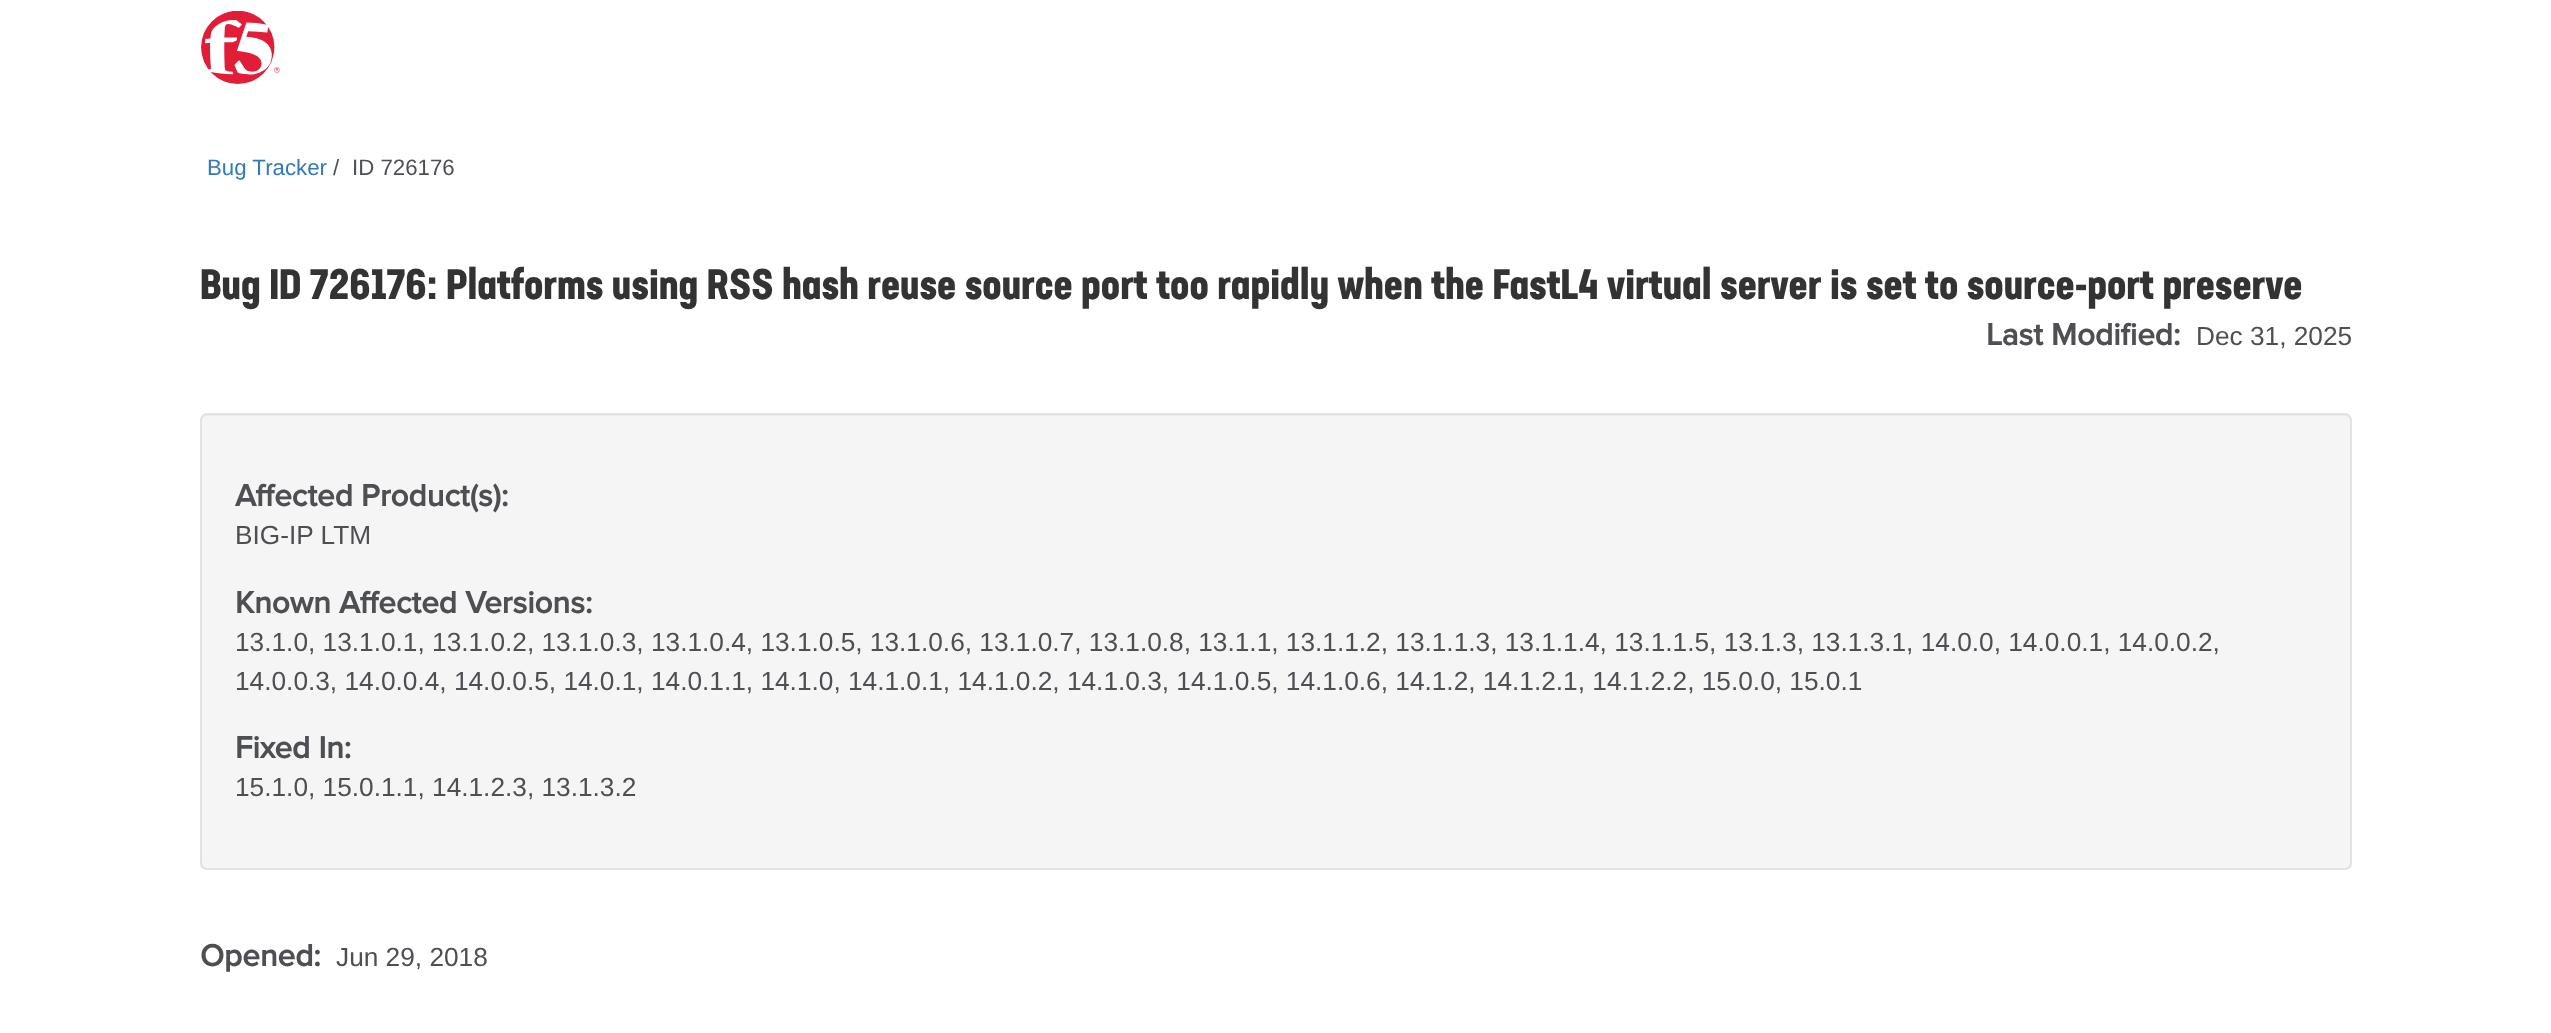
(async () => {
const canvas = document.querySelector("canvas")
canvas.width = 2551
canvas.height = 1033
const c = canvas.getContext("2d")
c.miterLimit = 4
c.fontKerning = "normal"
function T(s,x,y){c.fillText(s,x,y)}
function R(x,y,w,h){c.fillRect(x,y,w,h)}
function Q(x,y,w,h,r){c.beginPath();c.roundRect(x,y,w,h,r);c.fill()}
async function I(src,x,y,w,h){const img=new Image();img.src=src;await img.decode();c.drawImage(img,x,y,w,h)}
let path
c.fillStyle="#fff"
R(0,0,2551,1033)
await I("1.png",201,11,79,73)
c.font="22.25px Liberation Sans"
c.fillStyle="#337ab7"
T("Bug Tracker",207,175)
c.fillStyle="#4d4f53"
T("/",333,175)
T("ID 726176",352,175)
c.font="bold 42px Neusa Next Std"
c.fillStyle="#333"
T("Bug ID 726176: Platforms using RSS hash reuse source port too rapidly when the FastL4 virtual server is set to source-port preserve",200,299)
c.font="bold 31.5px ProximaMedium"
c.fillStyle="#4d4f53"
T("Last Modified:",1986,345)
c.font="26.25px Liberation Sans"
T("Dec 31, 2025",2196,345)
c.fillStyle="#f5f5f5"
Q(200,413,2152,457,7)
c.fillStyle="#e9e9e9"
path = new Path2D("M206 416h2139c3 0 5 3 5 6v-2c0-3-2-5-5-5h-2139c-3 0-5 2-5 5v2c0-3 3-6 5-6z")
c.fill(path)
c.beginPath()
c.roundRect(201,414,2150,455,6)
c.strokeStyle="#e3e3e3"
c.lineWidth=2
c.stroke()
c.font="bold 31.5px ProximaMedium"
c.fillStyle="#4d4f53"
T("Affected Product(s):",235,506)
c.font="26.25px Liberation Sans"
T("BIG-IP LTM",235,544)
c.font="bold 31.5px ProximaMedium"
T("Known Affected Versions:",235,613)
c.font="26.25px Liberation Sans"
T("13.1.0, 13.1.0.1, 13.1.0.2, 13.1.0.3, 13.1.0.4, 13.1.0.5, 13.1.0.6, 13.1.0.7, 13.1.0.8, 13.1.1, 13.1.1.2, 13.1.1.3, 13.1.1.4, 13.1.1.5, 13.1.3, 13.1.3.1, 14.0.0, 14.0.0.1, 14.0.0.2,",235,651)
T("14.0.0.3, 14.0.0.4, 14.0.0.5, 14.0.1, 14.0.1.1, 14.1.0, 14.1.0.1, 14.1.0.2, 14.1.0.3, 14.1.0.5, 14.1.0.6, 14.1.2, 14.1.2.1, 14.1.2.2, 15.0.0, 15.0.1",235,690)
c.font="bold 31.5px ProximaMedium"
T("Fixed In:",235,758)
c.font="26.25px Liberation Sans"
T("15.1.0, 15.0.1.1, 14.1.2.3, 13.1.3.2",235,796)
c.font="bold 31.5px ProximaMedium"
T("Opened:",200,966)
c.font="26.25px Liberation Sans"
T("Jun 29, 2018",336,966)
})()
